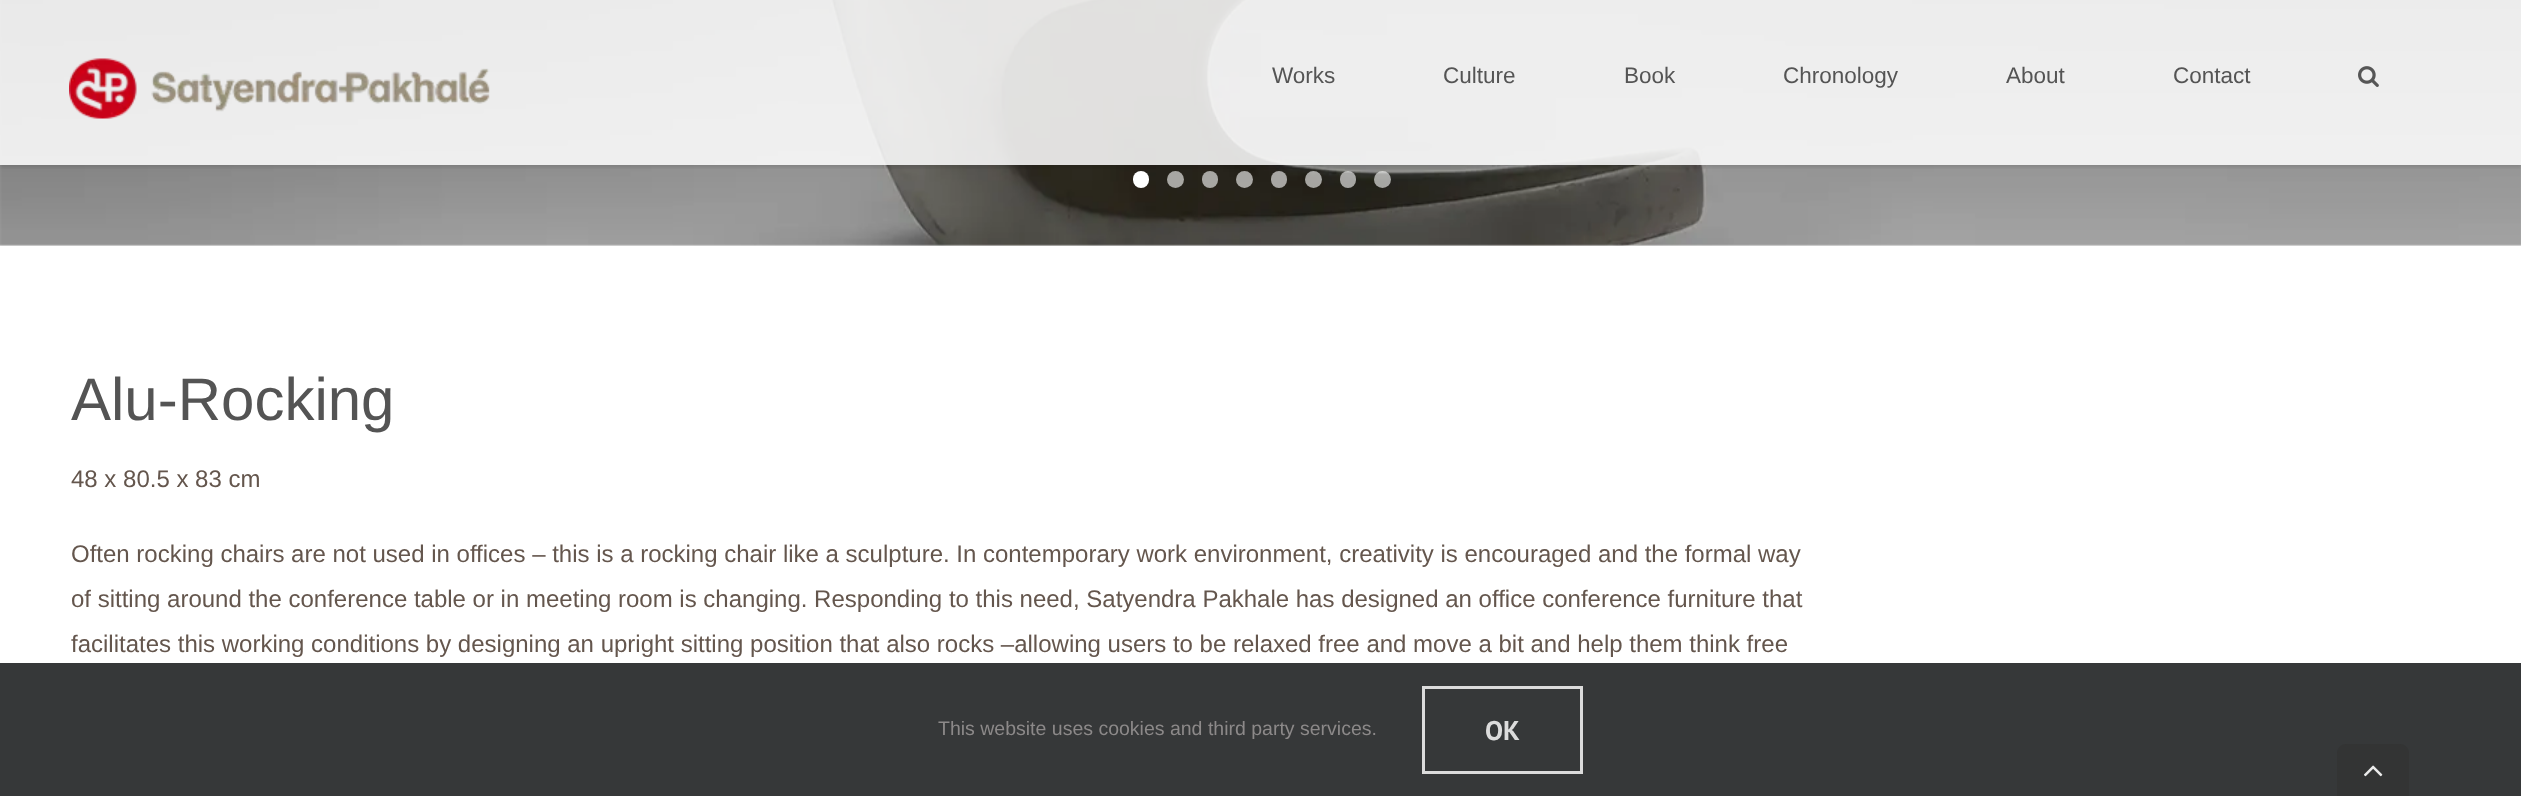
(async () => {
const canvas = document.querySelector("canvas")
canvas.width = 2521
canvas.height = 796
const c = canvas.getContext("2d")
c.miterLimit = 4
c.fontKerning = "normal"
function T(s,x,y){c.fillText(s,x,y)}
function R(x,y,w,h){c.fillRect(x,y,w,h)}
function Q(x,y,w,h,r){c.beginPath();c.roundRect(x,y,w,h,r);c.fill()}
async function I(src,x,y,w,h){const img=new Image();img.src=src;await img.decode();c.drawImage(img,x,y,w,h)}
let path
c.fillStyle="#fff"
R(0,0,2521,796)
await I("1.png",0,0,2521,246)
Q(1133,171,16,17,8)
c.fillStyle="#a8a7a3"
c.beginPath()
c.arc(1175.5,179.5,8.5,0,7)
c.fill()
c.fillStyle="#ffffff99"
Q(1202,171,16,17,8)
c.beginPath()
c.arc(1244.5,179.5,8.5,0,7)
c.fill()
Q(1271,171,16,17,8)
c.beginPath()
c.arc(1313.5,179.5,8.5,0,7)
c.fill()
Q(1340,171,16,17,8)
c.beginPath()
c.arc(1382.5,179.5,8.5,0,7)
c.fill()
c.save()
c.beginPath()
c.rect(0,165,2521,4)
c.clip()
c.fillStyle="#0000001f"
c.filter="blur(2px)"
c.beginPath()
c.rect(0,2,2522,165)
c.fill()
c.filter="none"
c.restore()
c.fillStyle="#ffffffdb"
R(0,0,2521,165)
await I("2.png",69,58,421,61)
c.font="22.5px Liberation Sans"
c.fillStyle="#545454"
T("Works",1272,83)
T("Culture",1443,83)
T("Book",1624,83)
T("Chronology",1783,83)
T("About",2006,83)
T("Contact",2173,83)
await I("3.png",2358,66,21,21)
c.font="60px Liberation Sans"
T("Alu-Rocking",71,420)
c.font="24px Liberation Sans"
c.fillStyle="#64564d"
T("48 x 80.5 x 83 cm",71,487)
T("Often rocking chairs are not used in offices – this is a rocking chair like a sculpture. In contemporary work environment, creativity is encouraged and the formal way",71,562)
T("of sitting around the conference table or in meeting room is changing. Responding to this need, Satyendra Pakhale has designed an office conference furniture that",71,607)
T("facilitates this working conditions by designing an upright sitting position that also rocks –allowing users to be relaxed free and move a bit and help them think free",71,652)
c.fillStyle="#363839"
R(0,663,2521,133)
c.font="19.5px Liberation Sans"
c.fillStyle="#8c8989"
T("This website uses cookies and third party services.",938,735)
c.strokeStyle="#dcdcdc"
c.lineWidth=3
c.strokeRect(1423.5,687.5,158,85)
c.font="bold 27px PT Sans"
c.fillStyle="#dcdcdc"
T("OK",1485,740)
c.fillStyle="#333434"
path = new Path2D("M2346 744h54c5 0 9 4 9 9v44h-72v-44c0-5 4-9 9-9z")
c.fill(path)
await I("4.png",2364,765,19,12)
})()
